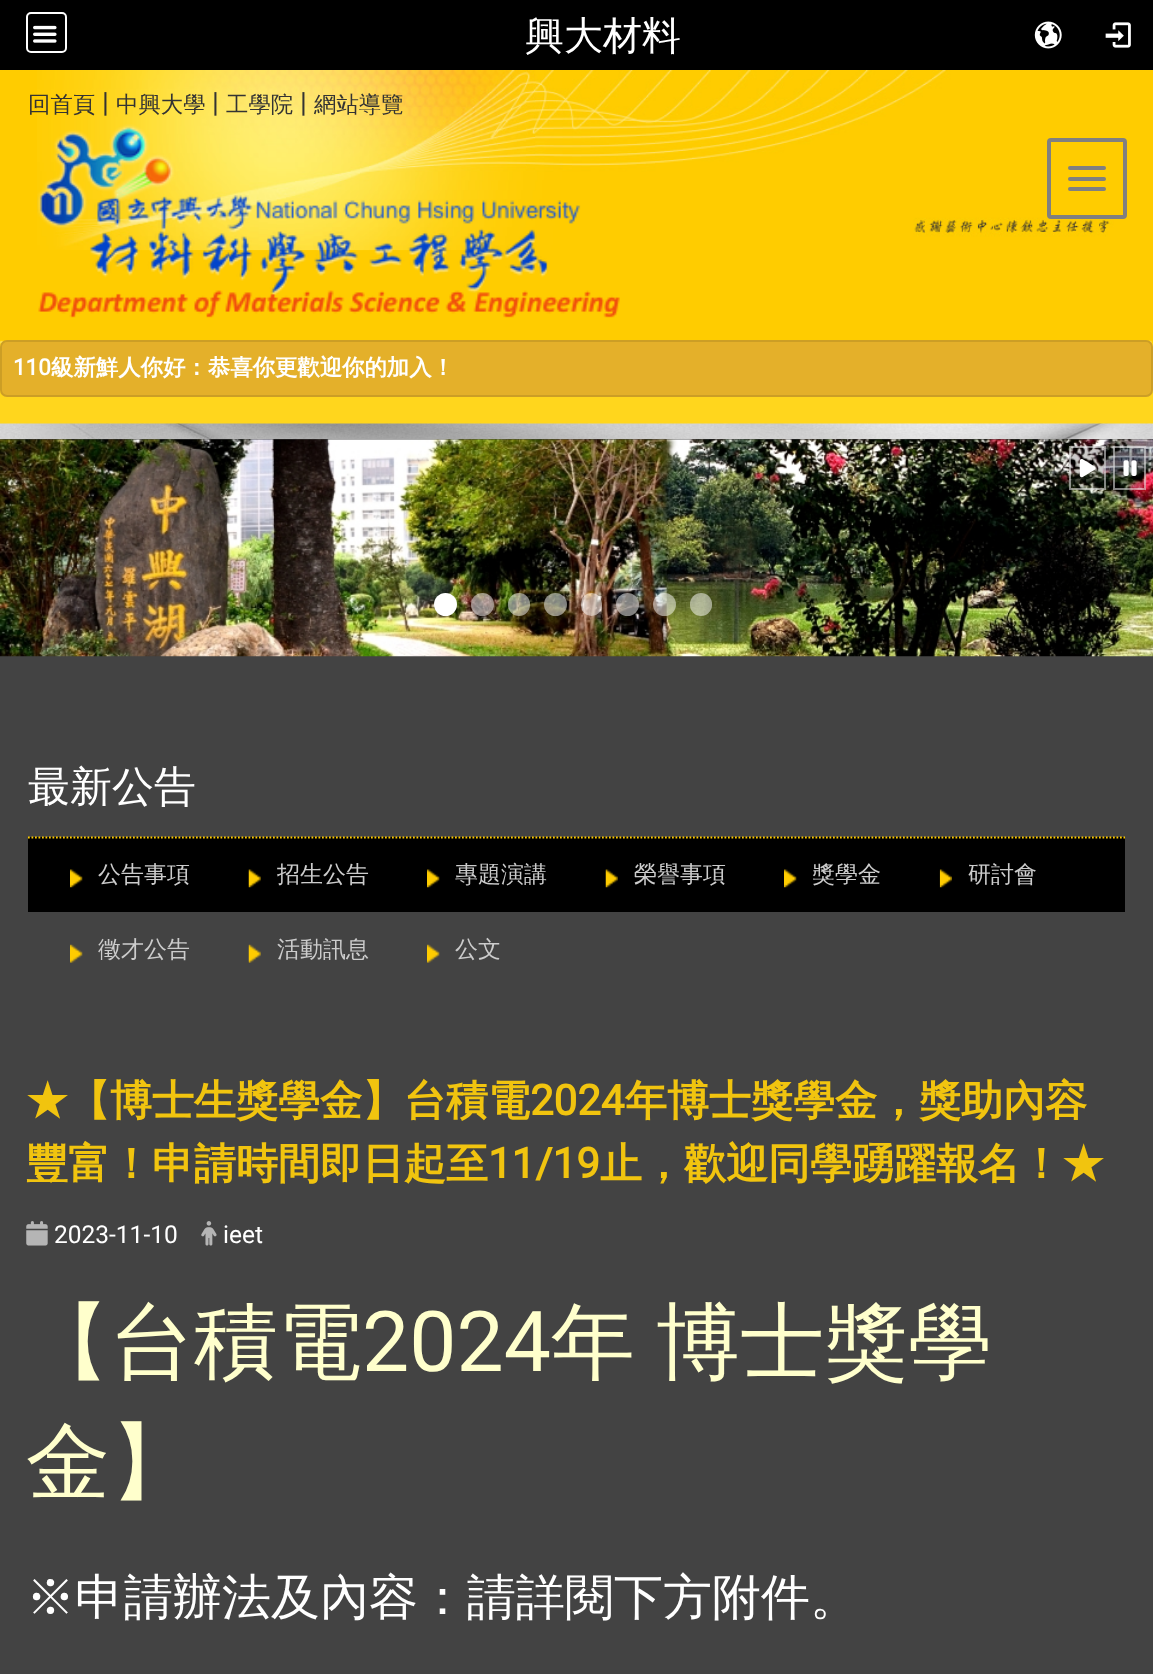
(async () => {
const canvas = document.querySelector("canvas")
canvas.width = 1153
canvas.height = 1674
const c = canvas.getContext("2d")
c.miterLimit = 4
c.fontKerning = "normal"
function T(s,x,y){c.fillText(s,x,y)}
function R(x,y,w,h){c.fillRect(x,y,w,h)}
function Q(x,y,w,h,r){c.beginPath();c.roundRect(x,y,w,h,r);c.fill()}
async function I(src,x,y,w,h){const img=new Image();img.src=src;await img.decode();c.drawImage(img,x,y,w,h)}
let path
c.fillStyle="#fff"
R(0,0,1153,1674)
c.fillStyle="#000"
R(0,0,1153,70)
c.beginPath()
c.roundRect(27,13,39,39,4)
c.strokeStyle="#fff"
c.lineWidth=2
c.stroke()
await I("1.png",33,25,24,18)
c.font="500 39px WenQuanYi Zen Hei"
c.fillStyle="#fff"
T("興大材料",525,49)
await I("2.png",1034,21,28,28)
await I("3.png",1105,22,26,26)
await I("7.png",0,423,1153,16)
await I("4.png",0,70,1153,354)
await I("5.png",37,70,1077,181)
c.font="500 22.4px WenQuanYi Zen Hei"
c.fillStyle="#333"
T("回首頁",28,112)
c.font="28px Roboto"
T("|",102,112)
c.font="500 22.4px WenQuanYi Zen Hei"
T("中興大學",116,112)
c.font="28px Roboto"
T("|",212,112)
c.font="500 22.4px WenQuanYi Zen Hei"
T("工學院",226,112)
c.font="28px Roboto"
T("|",300,112)
c.font="500 22.4px WenQuanYi Zen Hei"
T("網站導覽",314,112)
await I("6.png",37,124,583,194)
c.beginPath()
c.roundRect(1049,140,76,77,2)
c.strokeStyle="#808080"
c.lineWidth=4
c.stroke()
c.fillStyle="#808080"
Q(1068,166,38,4,2)
Q(1068,177,38,4,2)
Q(1068,187,38,4,2)
c.fillStyle="#e4b02a"
Q(0,340,1153,57,7)
c.beginPath()
c.roundRect(1,341,1151,55,6)
c.strokeStyle="#0000001a"
c.lineWidth=2
c.stroke()
c.font="bold 22.4px Roboto"
c.fillStyle="#fff"
T("110",13,375)
c.font="bold 22.4px WenQuanYi Zen Hei"
T("級新鮮人你好：恭喜你更歡迎你的加入！",51,375)
c.fillStyle="#434343"
R(0,439,1153,1235)
await I("8.png",0,439,1153,218)
c.fillStyle="#00000033"
R(1069,446,37,44)
c.strokeStyle="#ffffff80"
c.strokeRect(1070,447,35,42)
await I("9.png",1079,459,17,19)
R(1113,446,33,44)
c.strokeRect(1114,447,31,42)
await I("10.png",1123,460,14,16)
c.fillStyle="#fff"
c.beginPath()
c.arc(445.5,604.5,11.5,0,7)
c.fill()
c.fillStyle="#ffffff80"
c.beginPath()
c.arc(482.5,604.5,11.5,0,7)
c.fill()
Q(508,593,22,23,11)
c.beginPath()
c.arc(555.5,604.5,11.5,0,7)
c.fill()
Q(581,593,21,23,10.5)
c.beginPath()
c.arc(627.5,604.5,11.5,0,7)
c.fill()
c.beginPath()
c.arc(664.5,604.5,11.5,0,7)
c.fill()
Q(690,593,22,23,11)
c.font="500 42px WenQuanYi Zen Hei"
c.fillStyle="#fff"
T("最新公告",28,801)
c.fillStyle="#000"
R(28,837,1097,75)
path = new Path2D("M28 837.5h1097")
c.strokeStyle="#fc0"
c.lineWidth=1.8
c.setLineDash([1.75,1.75])
c.stroke(path)
await I("11.png",70,869,13,19)
c.font="500 23px WenQuanYi Zen Hei"
c.fillStyle="#ccc"
T("公告事項",98,882)
await I("12.png",248,869,13,19)
T("招生公告",277,882)
await I("13.png",427,869,13,19)
T("專題演講",455,882)
await I("12.png",605,869,13,19)
T("榮譽事項",634,882)
await I("13.png",784,869,13,19)
T("獎學金",812,882)
await I("14.png",939,869,13,19)
T("研討會",968,882)
await I("15.png",70,944,13,19)
T("徵才公告",98,957)
await I("16.png",248,944,13,19)
T("活動訊息",277,957)
await I("17.png",427,944,13,19)
T("公文",455,957)
c.font="bold 42px WenQuanYi Zen Hei"
c.fillStyle="#f1c40f"
T("★【博士生獎學金】台積電",26,1115)
c.font="bold 42px Roboto"
T("2024",530,1115)
c.font="bold 42px WenQuanYi Zen Hei"
T("年博士獎學金，獎助內容",625,1115)
T("豐富！申請時間即日起至",26,1178)
c.font="bold 42px Roboto"
T("11/19",488,1178)
c.font="bold 42px WenQuanYi Zen Hei"
T("止，歡迎同學踴躍報名！★",600,1178)
await I("18.png",26,1221,22,25)
c.font="24.5px Roboto"
c.fillStyle="#fff"
T("2023-11-10",54,1243)
await I("19.png",201,1221,16,25)
T("ieet",223,1243)
c.font="500 84px WenQuanYi Zen Hei"
c.fillStyle="#ffc"
T("【台積電",26,1371)
c.font="84px Roboto"
T("2024",362,1371)
c.wordSpacing="-4px"
c.font="500 84px WenQuanYi Zen Hei"
T("年 博士獎學",551,1371)
c.wordSpacing="0px"
T("金】",26,1491)
c.font="500 49px WenQuanYi Zen Hei"
c.fillStyle="#fff"
T("※申請辦法及內容：請詳閱下方附件。",26,1614)
})()
